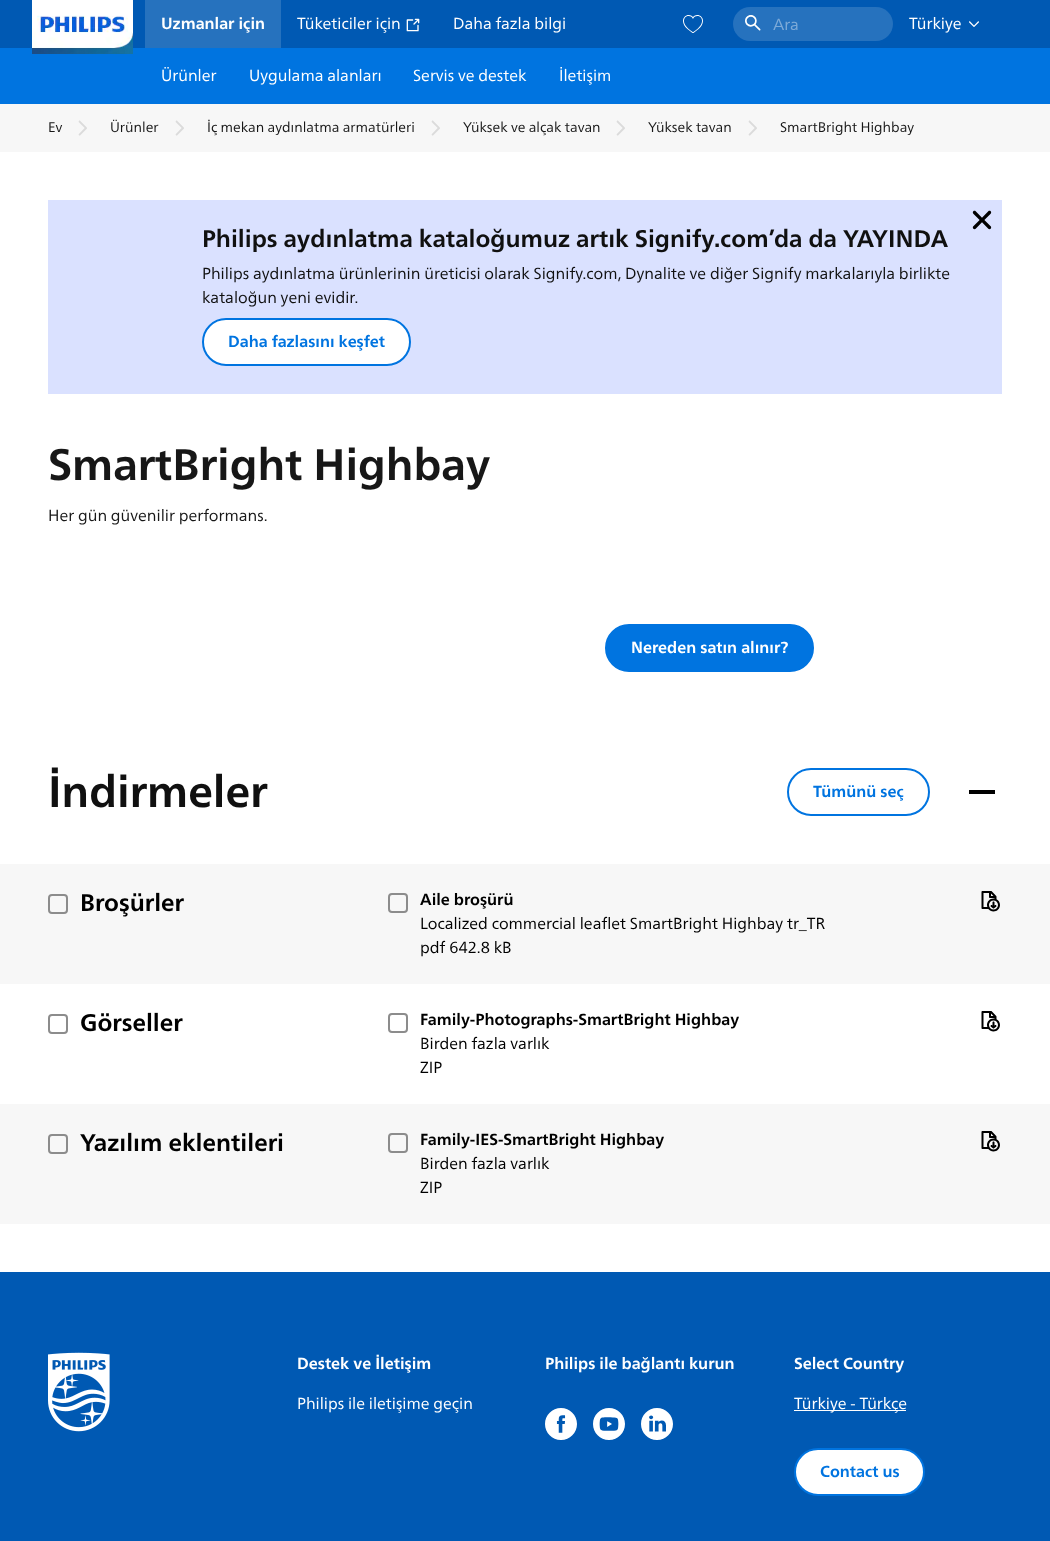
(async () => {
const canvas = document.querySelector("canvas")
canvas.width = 1050
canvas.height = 1541
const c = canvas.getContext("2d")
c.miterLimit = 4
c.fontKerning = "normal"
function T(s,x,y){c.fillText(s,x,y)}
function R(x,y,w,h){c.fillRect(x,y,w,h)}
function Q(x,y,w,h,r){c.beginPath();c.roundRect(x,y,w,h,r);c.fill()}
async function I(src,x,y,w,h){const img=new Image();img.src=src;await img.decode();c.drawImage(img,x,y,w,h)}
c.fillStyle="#fff"
R(0,0,1050,1541)
c.fillStyle="#0059b3"
R(0,0,1050,48)
c.fillStyle="#0074e0"
R(0,48,1050,56)
await I("1.png",32,0,101,54)
c.fillStyle="#2672be"
R(145,0,136,48)
c.font="bold 16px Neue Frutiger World"
c.fillStyle="#fff"
T("Uzmanlar için",161,29)
c.font="16px Neue Frutiger World"
T("Tüketiciler için",297,29)
await I("2.png",406,18,14,14)
T("Daha fazla bilgi",453,29)
await I("3.png",683,15,20,18)
c.fillStyle="#2672be"
Q(733,7,160,34,17)
await I("4.png",745,15,16,16)
c.fillStyle="#7daad8"
T("Ara",773,30)
c.fillStyle="#fff"
T("Türkiye",909,29)
await I("5.png",969,21,10,6)
T("Ürünler",161,81)
T("Uygulama alanları",249,81)
T("Servis ve destek",413,81)
T("İletişim",559,81)
c.fillStyle="#f7f7f7"
R(0,104,1050,48)
c.font="14px Neue Frutiger World"
c.fillStyle="#171717"
T("Ev",48,132)
await I("6.png",78,120,9,16)
T("Ürünler",110,132)
await I("6.png",175,120,9,16)
T("İç mekan aydınlatma armatürleri",207,132)
await I("6.png",431,120,9,16)
T("Yüksek ve alçak tavan",463,132)
await I("6.png",616,120,9,16)
T("Yüksek tavan",648,132)
await I("6.png",748,120,9,16)
T("SmartBright Highbay",780,132)
c.fillStyle="#dae1ff"
R(48,200,954,194)
await I("7.png",972,210,20,20)
c.font="bold 24px Neue Frutiger World"
c.fillStyle="#101010"
T("Philips aydınlatma kataloğumuz artık Signify.com’da da YAYINDA",202,247)
c.font="16px Neue Frutiger World"
T("Philips aydınlatma ürünlerinin üreticisi olarak Signify.com, Dynalite ve diğer Signify markalarıyla birlikte",202,279)
T("kataloğun yeni evidir.",202,303)
c.fillStyle="#fff"
c.beginPath()
c.roundRect(203,319,207,46,23)
c.fill()
c.strokeStyle="#0074e0"
c.lineWidth=2
c.stroke()
c.font="bold 16px Neue Frutiger World"
c.fillStyle="#0074e0"
T("Daha fazlasını keşfet",228,347)
c.font="bold 44px Neue Frutiger World"
c.fillStyle="#171717"
T("SmartBright Highbay",48,480)
c.font="16px Neue Frutiger World"
T("Her gün güvenilir performans.",48,521)
c.fillStyle="#0074e0"
c.beginPath()
c.roundRect(606,625,207,46,23)
c.fill()
c.stroke()
c.font="bold 16px Neue Frutiger World"
c.fillStyle="#fff"
T("Nereden satın alınır?",631,653)
c.font="bold 44px Neue Frutiger World"
c.fillStyle="#101010"
T("İndirmeler",48,807)
c.beginPath()
c.roundRect(788,769,141,46,23)
c.stroke()
c.font="bold 16px Neue Frutiger World"
c.fillStyle="#0074e0"
T("Tümünü seç",813,797)
c.fillStyle="#000"
R(969,790,26,4)
c.fillStyle="#f7f7f7"
R(0,864,1050,120)
c.beginPath()
c.roundRect(49,895,18,18,3)
c.strokeStyle="#8c8c8c"
c.stroke()
c.font="bold 24px Neue Frutiger World"
c.fillStyle="#000"
T("Broşürler",80,911)
c.beginPath()
c.roundRect(389,894,18,18,3)
c.stroke()
c.font="bold 16px Neue Frutiger World"
T("Aile broşürü",420,905)
c.font="16px Neue Frutiger World"
T("Localized commercial leaflet SmartBright Highbay tr_TR",420,929)
T("pdf 642.8 kB",420,953)
await I("8.png",981,891,19,21)
c.beginPath()
c.roundRect(49,1015,18,18,3)
c.stroke()
c.font="bold 24px Neue Frutiger World"
T("Görseller",80,1031)
c.beginPath()
c.roundRect(389,1014,18,18,3)
c.stroke()
c.font="bold 16px Neue Frutiger World"
T("Family-Photographs-SmartBright Highbay",420,1025)
c.font="16px Neue Frutiger World"
T("Birden fazla varlık",420,1049)
T("ZIP",420,1073)
await I("9.png",981,1011,19,21)
c.fillStyle="#f7f7f7"
R(0,1104,1050,120)
c.beginPath()
c.roundRect(49,1135,18,18,3)
c.stroke()
c.font="bold 24px Neue Frutiger World"
c.fillStyle="#000"
T("Yazılım eklentileri",80,1151)
c.beginPath()
c.roundRect(389,1134,18,18,3)
c.stroke()
c.font="bold 16px Neue Frutiger World"
T("Family-IES-SmartBright Highbay",420,1145)
c.font="16px Neue Frutiger World"
T("Birden fazla varlık",420,1169)
T("ZIP",420,1193)
await I("8.png",981,1131,19,21)
c.fillStyle="#0059b3"
R(0,1272,1050,269)
await I("10.png",48,1352,62,80)
c.font="bold 16px Neue Frutiger World"
c.fillStyle="#fff"
T("Destek ve İletişim",297,1369)
c.font="16px Neue Frutiger World"
T("Philips ile iletişime geçin",297,1409)
c.font="bold 16px Neue Frutiger World"
T("Philips ile bağlantı kurun",545,1369)
await I("11.png",545,1408,32,32)
await I("12.png",593,1408,32,32)
await I("13.png",641,1408,32,32)
T("Select Country",794,1369)
R(794,1410,112,1)
c.font="16px Neue Frutiger World"
T("Türkiye - Türkçe",794,1409)
c.beginPath()
c.roundRect(795,1449,129,46,23)
c.fill()
c.strokeStyle="#0074e0"
c.stroke()
c.font="bold 16px Neue Frutiger World"
c.fillStyle="#0074e0"
T("Contact us",820,1477)
})()
